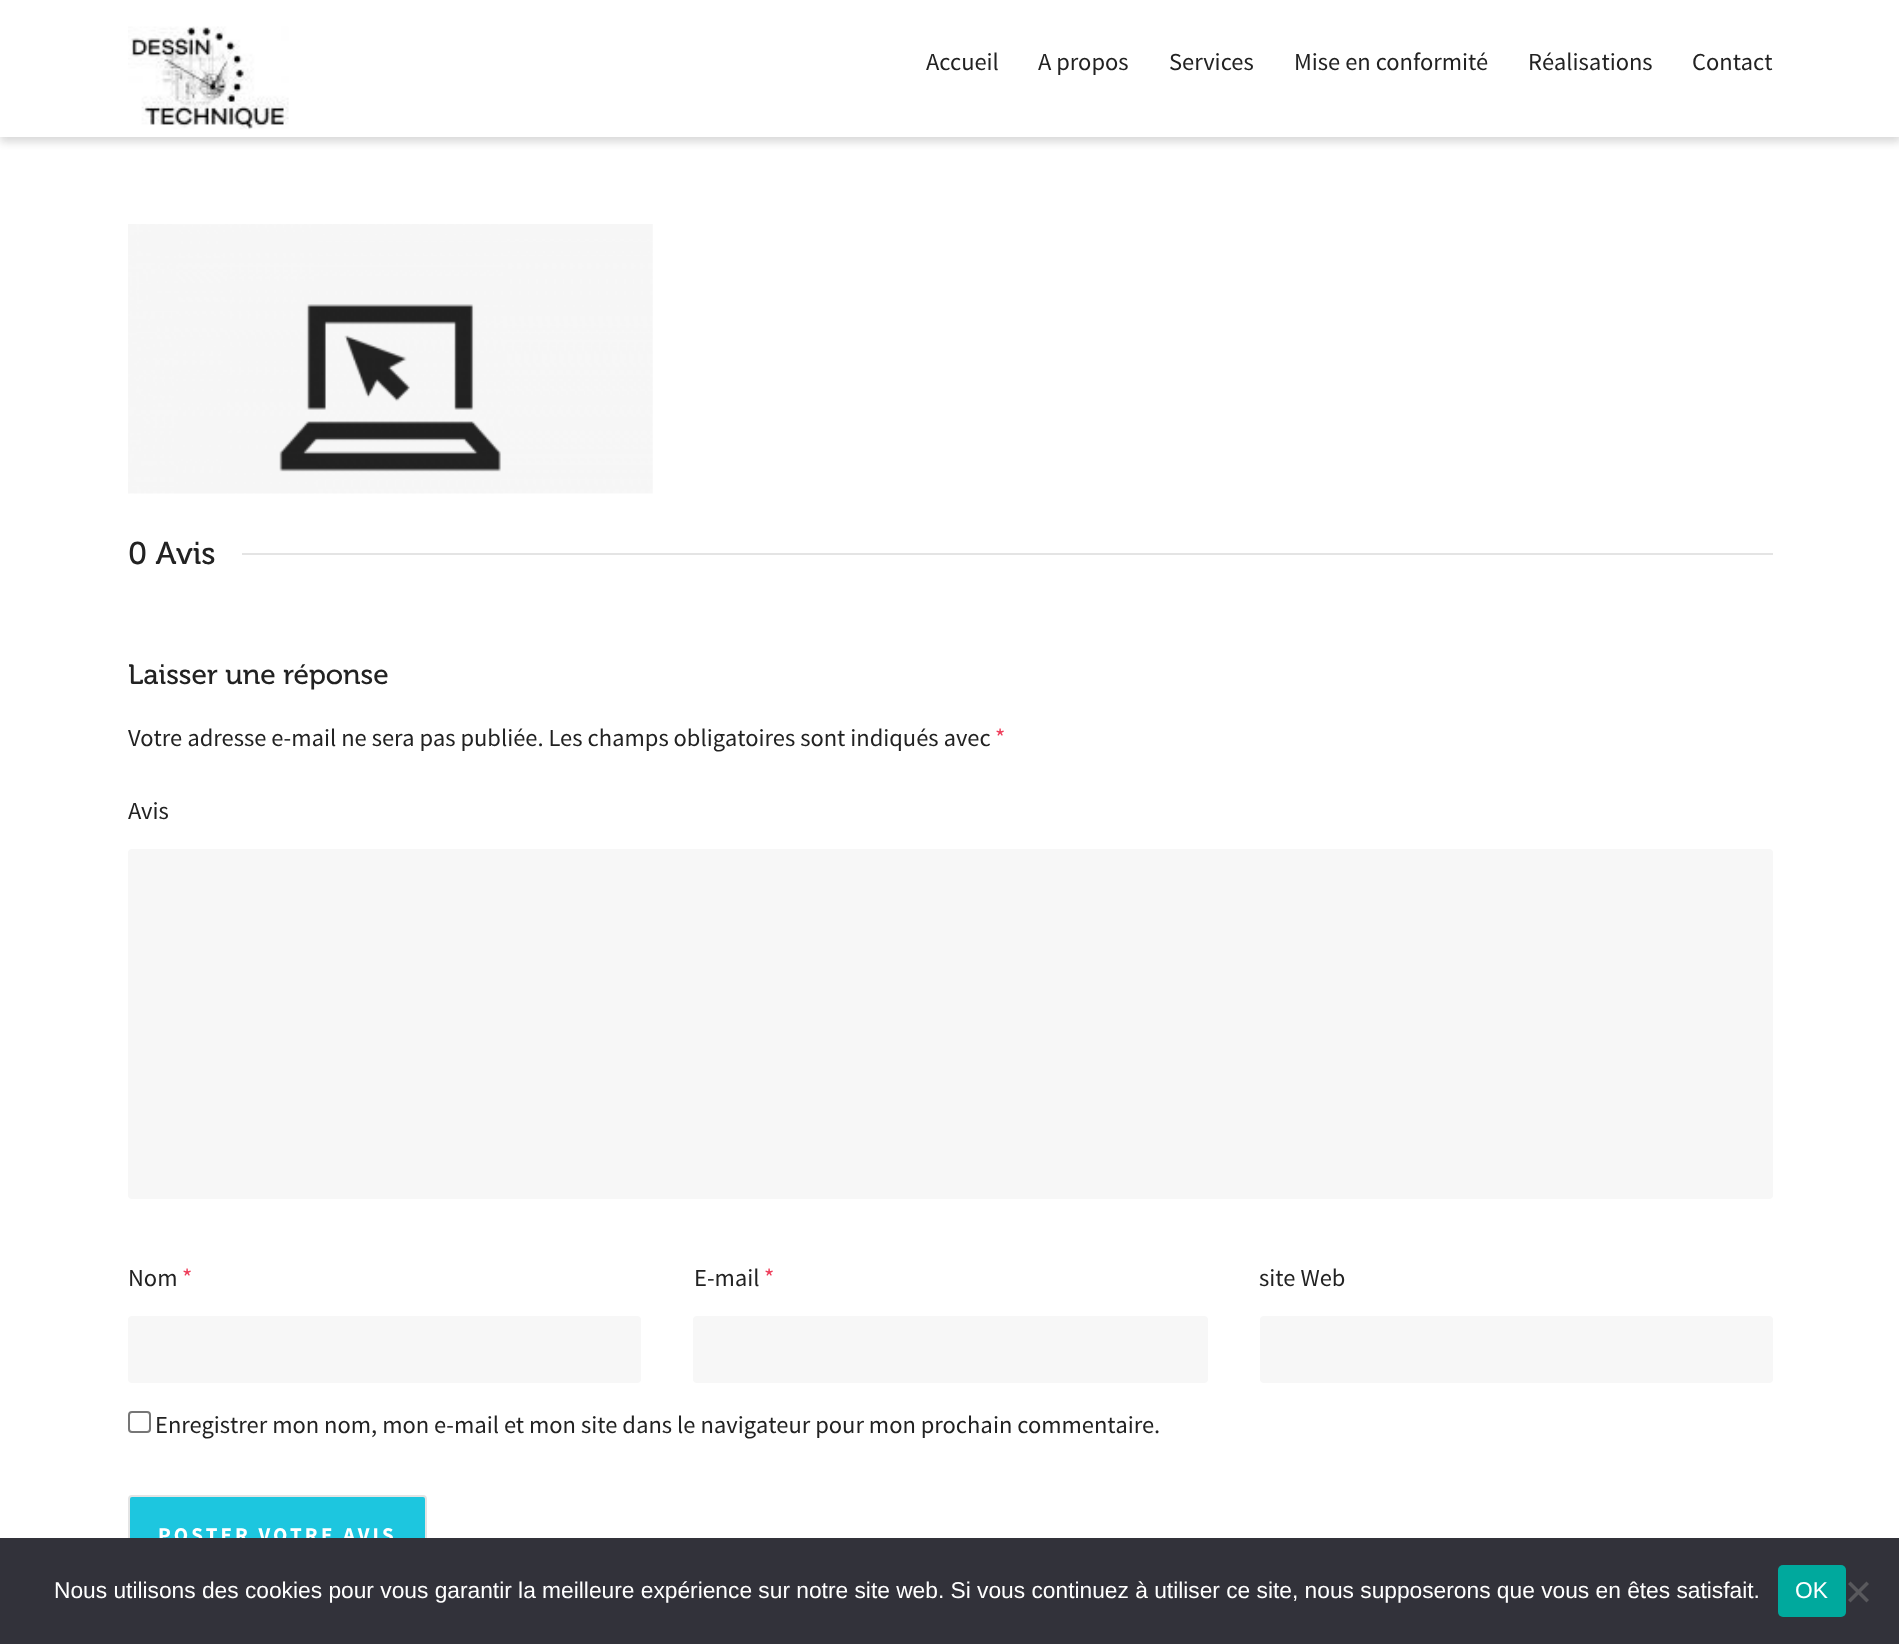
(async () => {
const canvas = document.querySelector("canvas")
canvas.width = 1899
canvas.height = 1644
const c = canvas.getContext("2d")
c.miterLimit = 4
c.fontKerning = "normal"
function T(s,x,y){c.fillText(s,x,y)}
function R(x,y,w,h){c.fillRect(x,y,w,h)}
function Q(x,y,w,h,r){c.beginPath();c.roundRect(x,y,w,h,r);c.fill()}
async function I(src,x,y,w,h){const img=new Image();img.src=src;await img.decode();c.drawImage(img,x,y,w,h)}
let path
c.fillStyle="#fff"
R(0,0,1899,1644)
c.fillStyle="#0000001a"
c.filter="blur(4.5px)"
c.beginPath()
c.rect(0,5,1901,137)
c.fill()
c.filter="none"
c.fillStyle="#0000000d"
c.filter="blur(4.5px)"
c.beginPath()
c.rect(0,5,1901,137)
c.fill()
c.filter="none"
c.fillStyle="#fff"
R(0,0,1899,137)
await I("1.png",128,26,161,104)
c.font="24.5px Source Sans Pro"
c.fillStyle="#222"
T("Accueil",926,70)
T("A propos",1038,70)
T("Services",1169,70)
T("Mise en conformité",1294,70)
T("Réalisations",1528,70)
T("Contact",1692,70)
await I("2.png",128,224,525,270)
c.font="31.5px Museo"
T("0 Avis",128,564)
c.fillStyle="#e4e4e4"
R(242,553,1531,2)
c.font="28px Museo"
c.fillStyle="#222"
T("Laisser une réponse",128,684)
c.font="24.5px Source Sans Pro"
T("Votre adresse e-mail ne sera pas publiée. Les champs obligatoires sont indiqués avec",128,746)
c.fillStyle="#ee3c59"
T("*",995,746)
c.fillStyle="#222"
T("Avis",128,819)
c.fillStyle="#f7f7f7"
Q(128,849,1645,350,4)
c.fillStyle="#222"
T("Nom",128,1286)
c.fillStyle="#ee3c59"
T("*",182,1286)
c.fillStyle="#f7f7f7"
Q(128,1316,513,67,4)
c.fillStyle="#222"
T("E-mail",694,1286)
c.fillStyle="#ee3c59"
T("*",764,1286)
c.fillStyle="#f7f7f7"
Q(693,1316,515,67,4)
c.fillStyle="#222"
T("site Web",1259,1286)
c.fillStyle="#f7f7f7"
Q(1260,1316,513,67,4)
c.beginPath()
c.roundRect(129,1412,21,20,3)
c.strokeStyle="#767676"
c.lineWidth=2
c.stroke()
c.fillStyle="#222"
T("Enregistrer mon nom, mon e-mail et mon site dans le navigateur pour mon prochain commentaire.",155,1433)
c.fillStyle="#1dc6df"
c.beginPath()
c.roundRect(129,1496,297,82,3)
c.fill()
c.strokeStyle="#e4e4e4"
c.stroke()
c.letterSpacing="3.1px"
c.font="bold 21px Source Sans Pro"
c.fillStyle="#fff"
T("POSTER VOTRE AVIS",158,1542)
c.fillStyle="#32323a"
R(0,1538,1899,106)
c.letterSpacing="0px"
c.font="22.75px Liberation Sans"
c.fillStyle="#fff"
T("Nous utilisons des cookies pour vous garantir la meilleure expérience sur notre site web. Si vous continuez à utiliser ce site, nous supposerons que vous en êtes satisfait.",54,1598)
c.fillStyle="#00a99d"
Q(1778,1565,68,52,5)
c.fillStyle="#fff"
T("OK",1795,1598)
c.fillStyle="#59595d"
path = new Path2D("M1866.5 1581.5l2.5 2.5l-18.5 18.5l-2.5-2.5z")
c.fill(path)
path = new Path2D("M1848 1584l2.5-2.5l18.5 18.5l-2.5 2.5z")
c.fill(path)
})()
